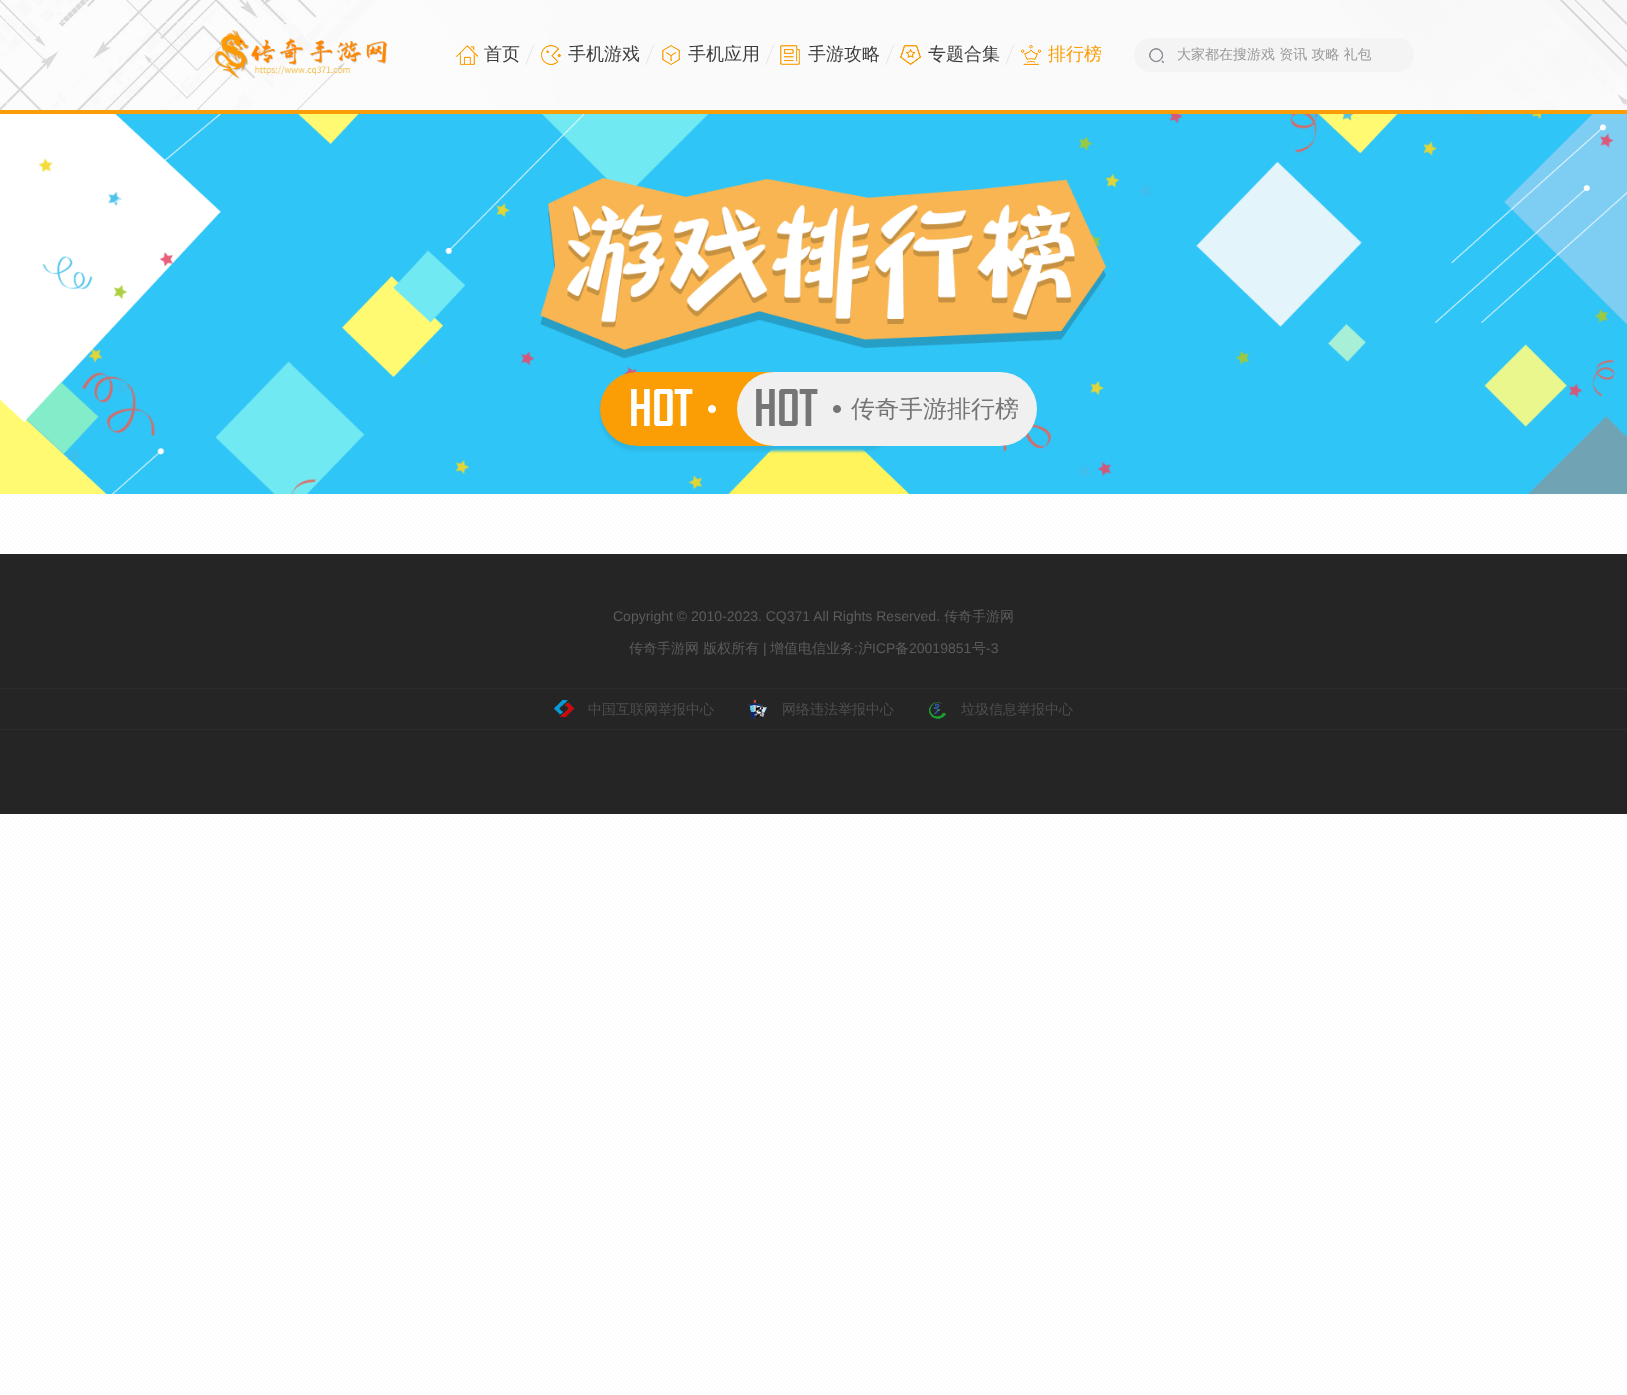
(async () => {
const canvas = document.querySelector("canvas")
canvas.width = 1627
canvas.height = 1395
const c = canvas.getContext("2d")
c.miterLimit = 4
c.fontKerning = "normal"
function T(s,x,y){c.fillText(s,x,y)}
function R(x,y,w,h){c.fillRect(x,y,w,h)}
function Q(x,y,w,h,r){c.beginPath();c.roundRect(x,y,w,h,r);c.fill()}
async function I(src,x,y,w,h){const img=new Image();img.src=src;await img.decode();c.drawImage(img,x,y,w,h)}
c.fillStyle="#fff"
R(0,0,1627,1395)
await I("1.png",0,494,1627,901)
await I("2.png",0,0,1627,110)
c.fillStyle="#fb9d04"
R(0,110,1627,4)
await I("3.png",214,30,174,49)
await I("4.png",456,45,22,20)
c.font="500 18px WenQuanYi Zen Hei"
c.fillStyle="#3d3d3d"
T("首页",484,60)
await I("5.png",525,44,10,21)
await I("6.png",541,45,20,20)
T("手机游戏",568,60)
await I("7.png",645,44,10,21)
await I("8.png",662,45,18,20)
T("手机应用",688,60)
await I("7.png",765,44,10,21)
await I("9.png",780,45,20,20)
T("手游攻略",808,60)
await I("7.png",885,44,10,21)
await I("10.png",900,45,21,20)
T("专题合集",928,60)
await I("7.png",1005,44,10,21)
await I("11.png",1021,45,20,20)
c.fillStyle="#fb9d04"
T("排行榜",1048,60)
c.fillStyle="#f4f4f4"
Q(1134,38,280,34,17)
await I("12.png",1149,48,15,15)
c.font="500 14px WenQuanYi Zen Hei"
c.fillStyle="#999"
T("大家都在搜游戏 资讯 攻略 礼包",1177,59)
await I("13.png",0,114,1627,380)
c.fillStyle="#2cb6e4"
c.filter="blur(1.5px)"
c.beginPath()
c.roundRect(600,377,300,74,37)
c.fill()
c.filter="none"
c.fillStyle="#fb9d04"
Q(600,372,300,74,37)
await I("14.png",631,389,85,37)
c.fillStyle="#f0f0f0"
Q(737,372,300,74,37)
await I("15.png",756,389,85,37)
c.font="500 24px WenQuanYi Zen Hei"
c.fillStyle="#757575"
T("传奇手游排行榜",851,417)
c.fillStyle="#252525"
R(0,554,1627,260)
c.font="14px Liberation Sans"
c.fillStyle="#5c5c5c"
T("Copyright © 2010-2023. CQ371 All Rights Reserved.",613,621)
c.font="500 14px WenQuanYi Zen Hei"
T("传奇手游网",944,621)
T("传奇手游网 版权所有",629,653)
c.font="14px Liberation Sans"
T("|",763,653)
c.font="500 14px WenQuanYi Zen Hei"
T("增值电信业务 沪",770,653)
c.font="14px Liberation Sans"
T("ICP",872,653)
c.font="500 14px WenQuanYi Zen Hei"
T("备",895,653)
c.font="14px Liberation Sans"
T("20019851",909,653)
c.font="500 14px WenQuanYi Zen Hei"
T("号",972,653)
c.font="14px Liberation Sans"
T("-3",986,653)
T(":",854,653)
c.fillStyle="#2c2c2c"
R(0,688,1627,1)
R(0,729,1627,1)
await I("16.png",554,700,20,17)
c.font="500 14px WenQuanYi Zen Hei"
c.fillStyle="#4f4f4f"
T("中国互联网举报中心",588,714)
await I("17.png",748,700,20,19)
T("网络违法举报中心",782,714)
await I("18.png",929,702,17,17)
T("垃圾信息举报中心",961,714)
})()
